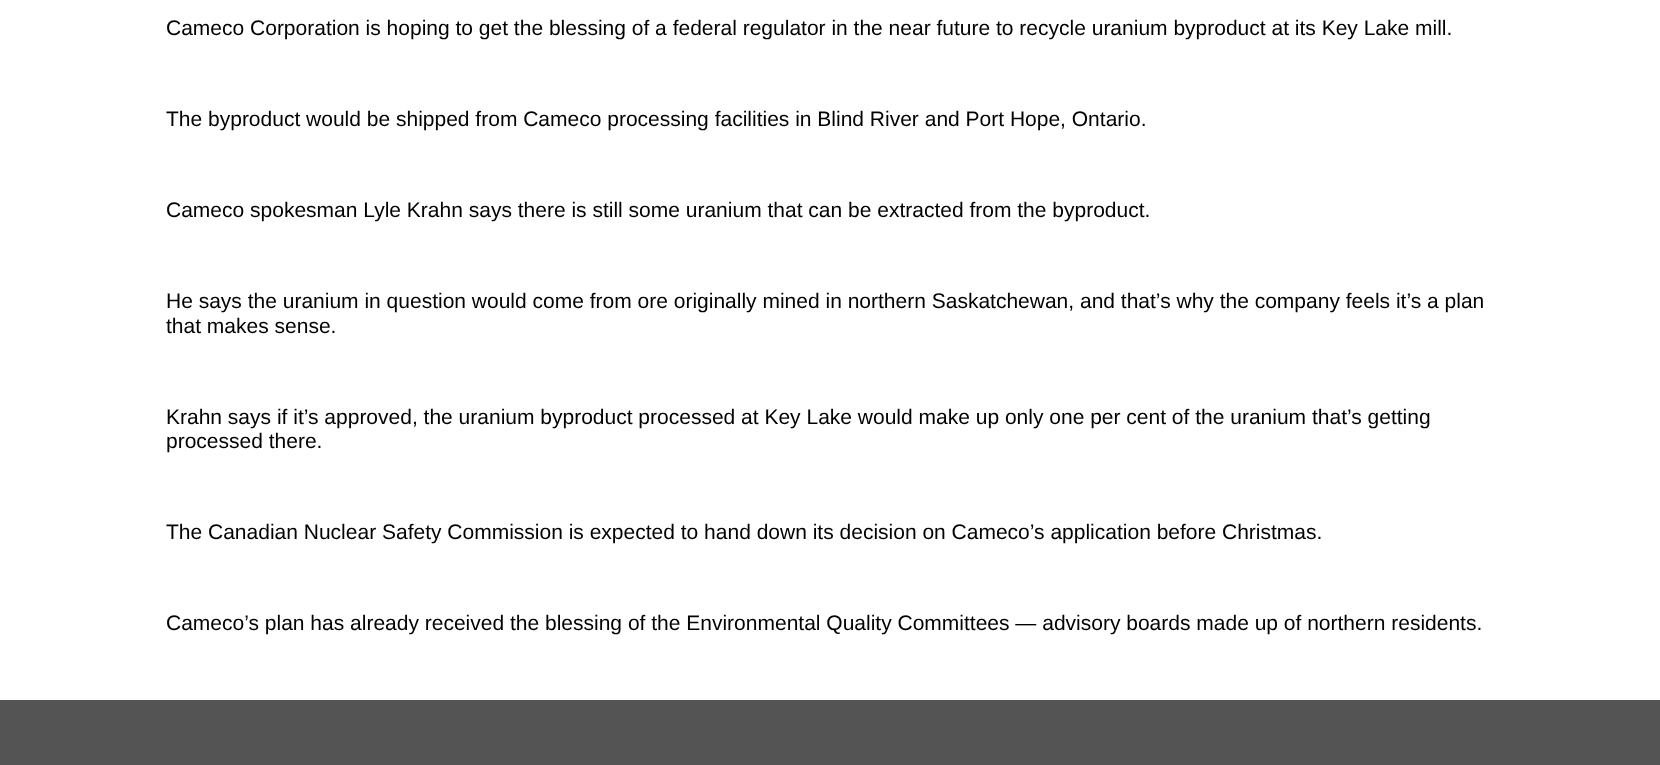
(async () => {
const canvas = document.querySelector("canvas")
canvas.width = 1660
canvas.height = 765
const c = canvas.getContext("2d")
c.miterLimit = 4
c.fontKerning = "normal"
function T(s,x,y){c.fillText(s,x,y)}
function R(x,y,w,h){c.fillRect(x,y,w,h)}
c.fillStyle="#545454"
R(0,0,1660,765)
c.fillStyle="#fff"
R(0,0,1660,700)
c.font="21px Liberation Sans"
c.fillStyle="#000"
T("Cameco Corporation is hoping to get the blessing of a federal regulator in the near future to recycle uranium byproduct at its Key Lake mill.",166,35)
T("The byproduct would be shipped from Cameco processing facilities in Blind River and Port Hope, Ontario.",166,126)
T("Cameco spokesman Lyle Krahn says there is still some uranium that can be extracted from the byproduct.",166,217)
T("He says the uranium in question would come from ore originally mined in northern Saskatchewan, and that’s why the company feels it’s a plan",166,308)
T("that makes sense.",166,333)
T("Krahn says if it’s approved, the uranium byproduct processed at Key Lake would make up only one per cent of the uranium that’s getting",166,424)
T("processed there.",166,448)
T("The Canadian Nuclear Safety Commission is expected to hand down its decision on Cameco’s application before Christmas.",166,539)
T("Cameco’s plan has already received the blessing of the Environmental Quality Committees — advisory boards made up of northern residents.",166,630)
})()
